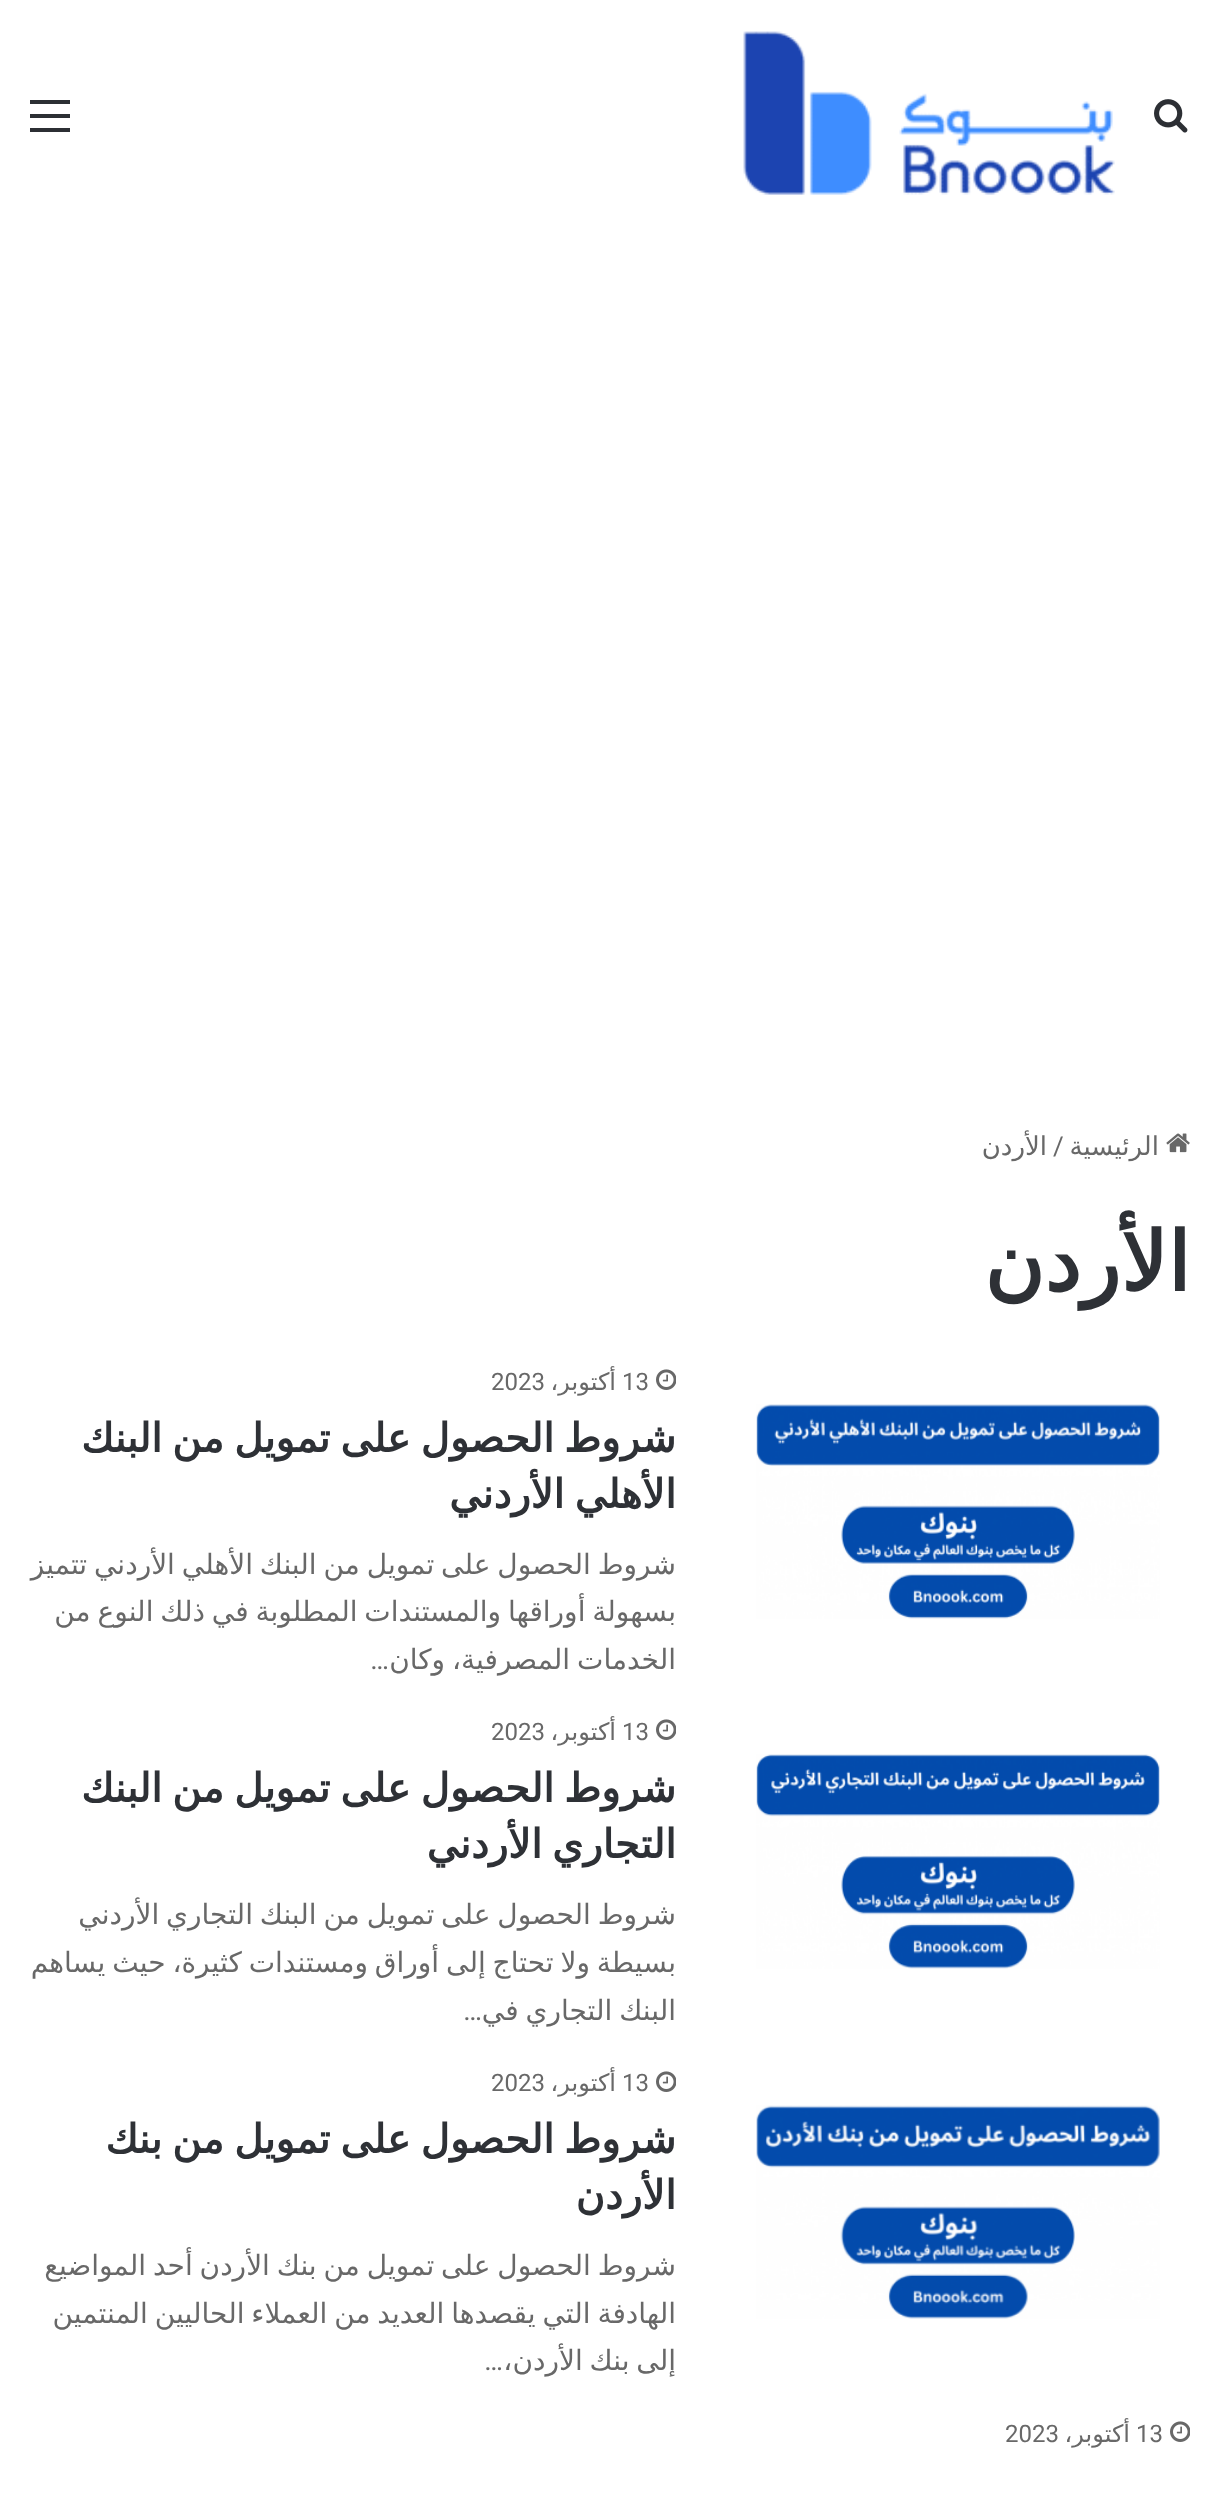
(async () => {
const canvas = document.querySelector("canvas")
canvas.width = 1219
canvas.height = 2494
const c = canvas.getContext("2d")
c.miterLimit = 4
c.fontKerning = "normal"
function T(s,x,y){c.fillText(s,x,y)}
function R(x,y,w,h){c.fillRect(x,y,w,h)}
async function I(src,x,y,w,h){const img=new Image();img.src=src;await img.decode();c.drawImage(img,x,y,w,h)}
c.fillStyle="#fff"
R(0,0,1219,2494)
await I("1.png",1154,99,34,34)
await I("2.png",743,31,372,164)
c.fillStyle="#2c2f34"
R(30,114,40,4)
R(30,100,40,4)
R(30,128,40,4)
await I("3.png",1166,1133,24,20)
c.direction="rtl"
c.font="26px DejaVu Sans"
c.fillStyle="#686868"
T("الرئيسية",1159,1155)
c.direction="ltr"
c.font="26px Roboto"
T("/",1053,1155)
c.direction="rtl"
c.font="26px DejaVu Sans"
T("الأردن",1047,1155)
c.font="bold 82px DejaVu Sans"
c.fillStyle="#2e3136"
T("الأردن",1190,1291)
await I("4.png",756,1404,404,215)
await I("5.png",656,1369,20,21)
c.direction="ltr"
c.font="24px Roboto"
c.fillStyle="#686868"
T("13",622,1390)
c.direction="rtl"
c.font="24px DejaVu Sans"
T("أكتوبر،",616,1390)
c.direction="ltr"
c.font="24px Roboto"
T("2023",491,1390)
c.wordSpacing="-2.75px"
c.direction="rtl"
c.font="bold 40px DejaVu Sans"
c.fillStyle="#2e3136"
T("شروط الحصول على تمويل من البنك",676,1452)
T("الأهلي الأردني",676,1508)
c.wordSpacing="-2px"
c.font="28px DejaVu Sans"
c.fillStyle="#686868"
T("شروط الحصول على تمويل من البنك الأهلي الأردني تتميز",676,1574)
T("بسهولة أوراقها والمستندات المطلوبة في ذلك النوع من",676,1621)
T("الخدمات المصرفية، وكان",676,1669)
c.wordSpacing="0px"
c.font="28px Roboto"
T("…",389,1669)
await I("6.png",756,1754,404,215)
await I("5.png",656,1719,20,21)
c.direction="ltr"
c.font="24px Roboto"
T("13",622,1740)
c.direction="rtl"
c.font="24px DejaVu Sans"
T("أكتوبر،",616,1740)
c.direction="ltr"
c.font="24px Roboto"
T("2023",491,1740)
c.wordSpacing="-2.75px"
c.direction="rtl"
c.font="bold 40px DejaVu Sans"
c.fillStyle="#2e3136"
T("شروط الحصول على تمويل من البنك",676,1802)
T("التجاري الأردني",676,1858)
c.wordSpacing="-2px"
c.font="28px DejaVu Sans"
c.fillStyle="#686868"
T("شروط الحصول على تمويل من البنك التجاري الأردني",676,1924)
T("بسيطة ولا تحتاج إلى أوراق ومستندات كثيرة، حيث يساهم",676,1972)
T("البنك التجاري في",676,2020)
c.wordSpacing="0px"
c.font="28px Roboto"
T("…",482,2020)
await I("7.png",756,2105,404,214)
await I("5.png",656,2071,20,21)
c.direction="ltr"
c.font="24px Roboto"
T("13",622,2091)
c.direction="rtl"
c.font="24px DejaVu Sans"
T("أكتوبر،",616,2091)
c.direction="ltr"
c.font="24px Roboto"
T("2023",491,2091)
c.wordSpacing="-2.75px"
c.direction="rtl"
c.font="bold 40px DejaVu Sans"
c.fillStyle="#2e3136"
T("شروط الحصول على تمويل من بنك",676,2153)
c.wordSpacing="0px"
T("الأردن",676,2209)
c.wordSpacing="-2px"
c.font="28px DejaVu Sans"
c.fillStyle="#686868"
T("شروط الحصول على تمويل من بنك الأردن أحد المواضيع",676,2275)
T("الهادفة التي يقصدها العديد من العملاء الحاليين المنتمين",676,2323)
T("إلى بنك الأردن،",676,2370)
c.wordSpacing="0px"
c.font="28px Roboto"
T("…",503,2370)
await I("5.png",1170,2421,20,21)
c.direction="ltr"
c.font="24px Roboto"
T("13",1136,2442)
c.direction="rtl"
c.font="24px DejaVu Sans"
T("أكتوبر،",1130,2442)
c.direction="ltr"
c.font="24px Roboto"
T("2023",1005,2442)
})()
